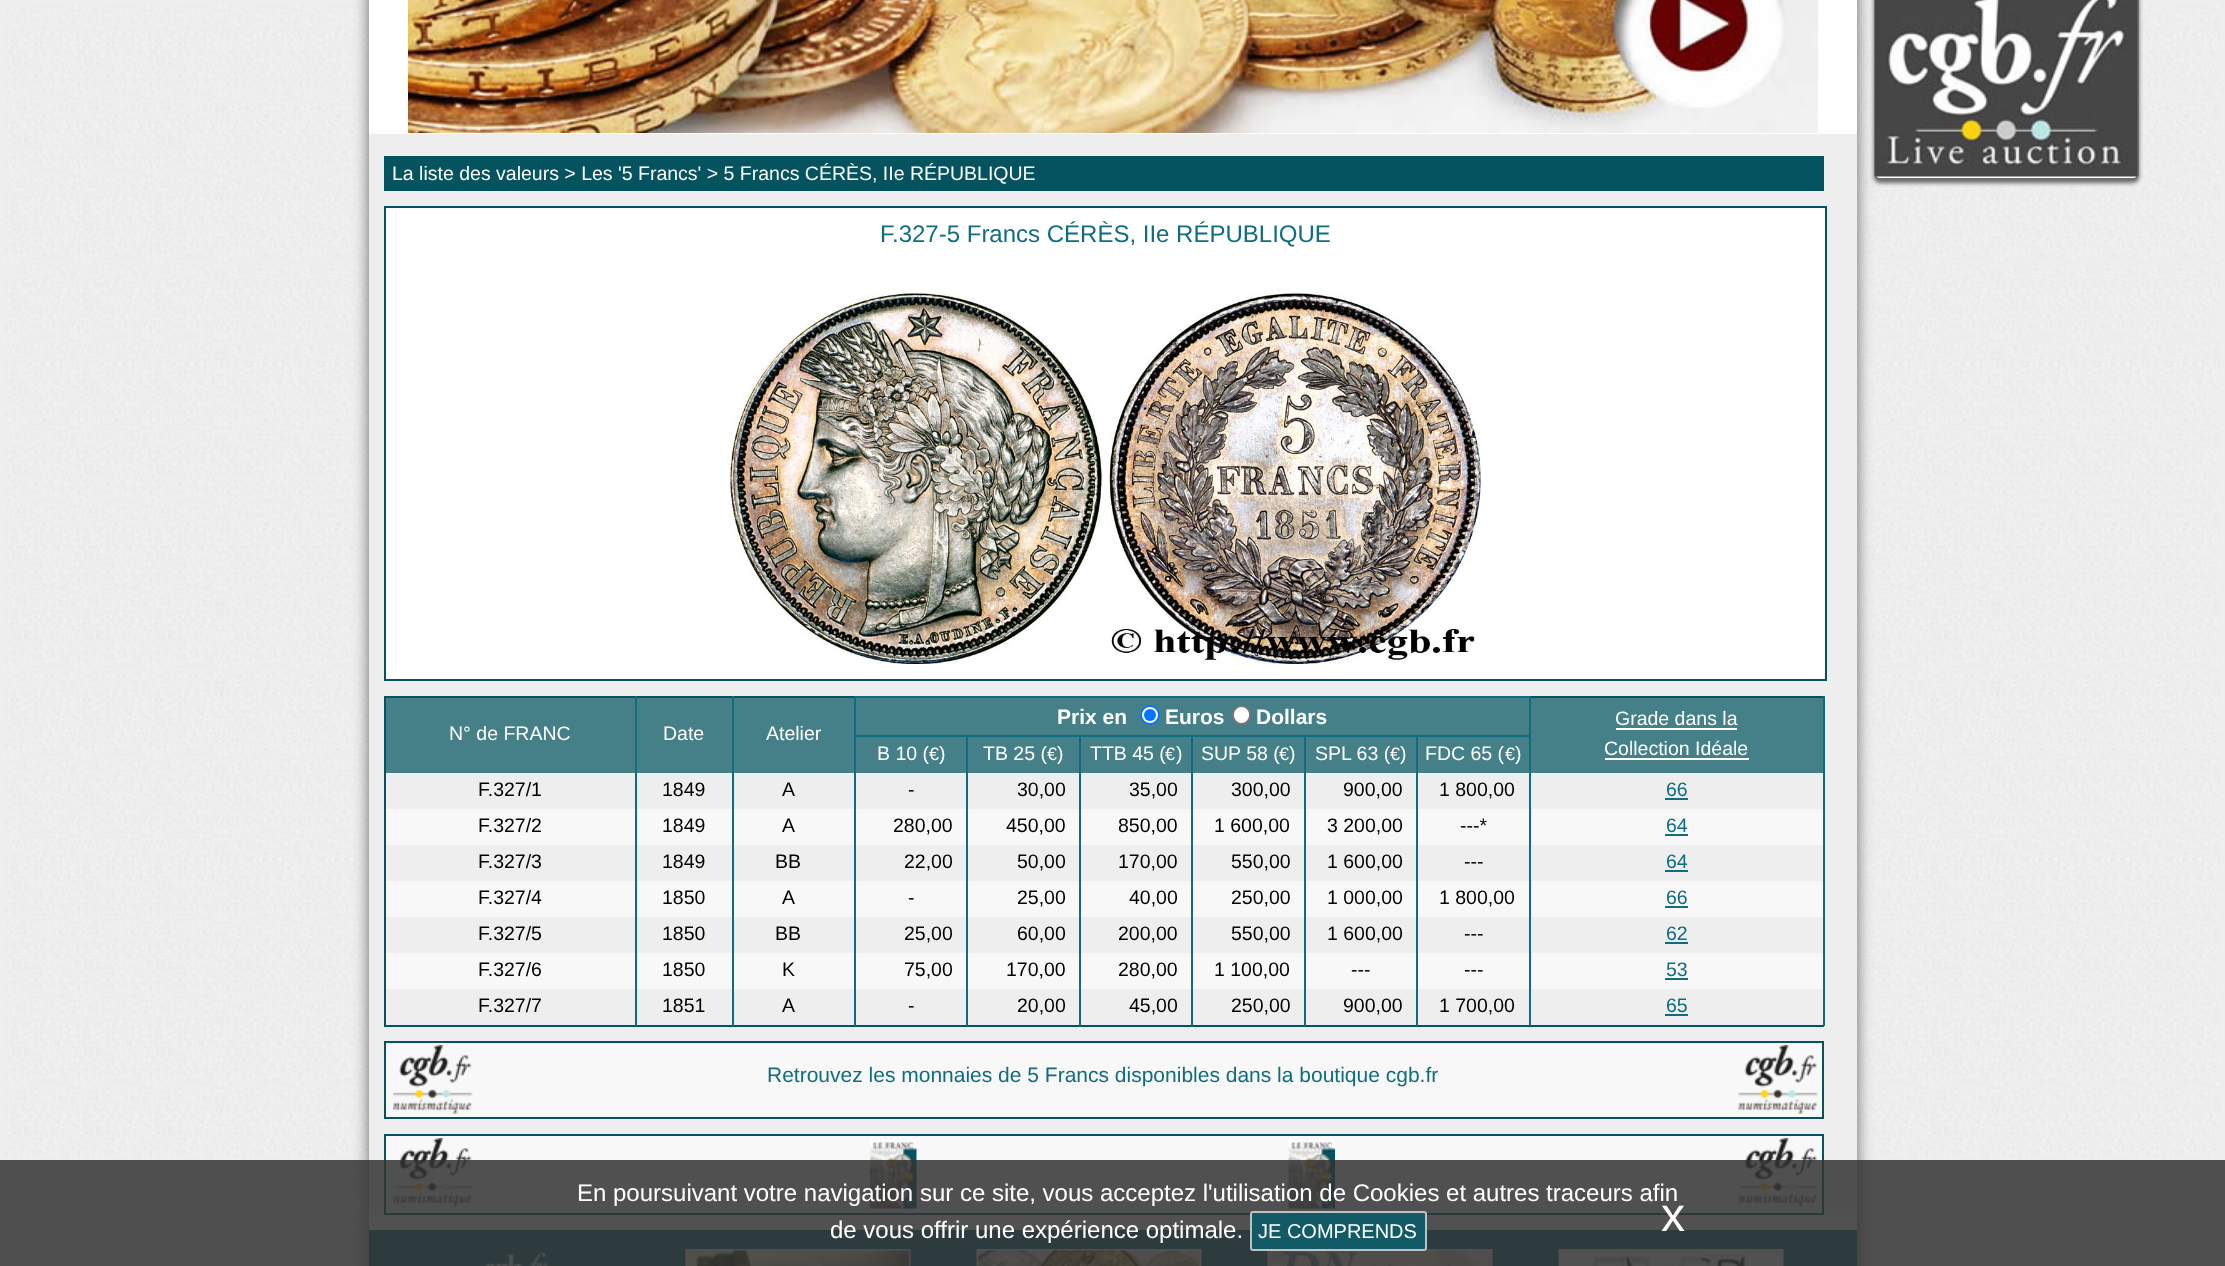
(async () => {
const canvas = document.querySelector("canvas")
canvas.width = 2225
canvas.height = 1266
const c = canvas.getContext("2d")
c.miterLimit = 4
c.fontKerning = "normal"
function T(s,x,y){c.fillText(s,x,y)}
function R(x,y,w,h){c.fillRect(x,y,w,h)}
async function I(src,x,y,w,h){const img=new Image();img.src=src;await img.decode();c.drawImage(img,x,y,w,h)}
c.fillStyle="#eee"
R(0,0,2225,1266)
await I("1.png",5,3,2215,1261)
c.fillStyle="#666"
c.filter="blur(7.5px)"
c.beginPath()
c.rect(369,-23,1488,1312)
c.fill()
c.filter="none"
c.fillStyle="#fff"
R(369,0,1488,1230)
c.fillStyle="#666"
c.filter="blur(2px)"
c.beginPath()
c.roundRect(1874,-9,265,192,6)
c.fill()
c.filter="none"
c.fillStyle="#fff"
c.beginPath()
c.roundRect(1875,-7,263,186,5)
c.fill()
c.strokeStyle="#6c6f6c"
c.lineWidth=2
c.stroke()
await I("2.png",1875,0,263,177)
await I("3.png",408,0,1410,133)
c.fillStyle="#eee"
R(369,134,1488,1081)
c.fillStyle="#05535f"
R(384,156,1440,35)
c.font="19.5px Liberation Sans"
c.fillStyle="#fff"
T("La liste des valeurs > Les '5 Francs' > 5 Francs CÉRÈS, IIe RÉPUBLIQUE",392,180)
c.beginPath()
c.rect(385,207,1441,473)
c.fill()
c.strokeStyle="#05535f"
c.stroke()
c.font="24px Liberation Sans"
c.fillStyle="#106d7f"
T("F.327-5 Francs CÉRÈS, IIe RÉPUBLIQUE",880,242)
await I("4.png",730,293,751,371)
c.fillStyle="#05535f"
R(384,696,1440,2)
R(384,1025,1440,2)
R(384,696,2,330)
c.fillStyle="#458088"
R(386,698,1437,75)
c.font="19.5px Liberation Sans"
c.fillStyle="#fff"
T("N° de FRANC",449,740)
T("Date",663,740)
c.fillStyle="#106d7f"
R(854,696,676,2)
c.fillStyle="#f8f8f8"
R(386,809,1437,36)
R(386,881,1437,36)
R(386,953,1437,36)
c.fillStyle="#106d7f"
R(1529,735,2,291)
R(1529,696,2,41)
R(966,735,2,291)
R(1079,735,2,291)
R(1191,735,2,291)
R(1304,735,2,291)
R(1416,735,2,291)
R(854,735,676,2)
R(854,771,2,255)
R(854,696,2,77)
c.fillStyle="#fff"
T("Atelier",766,740)
c.font="bold 21px Liberation Sans"
T("Prix en",1057,724)
c.beginPath()
c.arc(1150,715,9,0,7)
c.fill()
c.strokeStyle="#0075ff"
c.stroke()
c.fillStyle="#0075ff"
c.beginPath()
c.arc(1150,715,6,0,7)
c.fill()
c.fillStyle="#fff"
T("Euros",1165,724)
c.beginPath()
c.roundRect(1233,706,17,18,8.5)
c.fill()
c.strokeStyle="#767676"
c.stroke()
T("Dollars",1256,724)
c.font="19.5px Liberation Sans"
T("Grade dans la",1615,725)
R(1616,728,121,2)
T("Collection Idéale",1604,755)
R(1605,758,144,2)
T("B 10 (",877,760)
c.font="18px Liberation Sans"
T("€",929,760)
c.font="19.5px Liberation Sans"
T(")",939,760)
T("TB 25 (",983,760)
c.font="18px Liberation Sans"
T("€",1047,760)
c.font="19.5px Liberation Sans"
T(")",1057,760)
T("TTB 45 (",1090,760)
c.font="18px Liberation Sans"
T("€",1165,760)
c.font="19.5px Liberation Sans"
T(")",1176,760)
T("SUP 58 (",1201,760)
c.font="18px Liberation Sans"
T("€",1279,760)
c.font="19.5px Liberation Sans"
T(")",1289,760)
T("SPL 63 (",1315,760)
c.font="18px Liberation Sans"
T("€",1390,760)
c.font="19.5px Liberation Sans"
T(")",1400,760)
T("FDC 65 (",1425,760)
c.font="18px Liberation Sans"
T("€",1505,760)
c.font="19.5px Liberation Sans"
T(")",1515,760)
c.fillStyle="#000"
T("F.327/1",478,796)
T("1849",662,796)
T("A",782,796)
T("-",908,796)
T("30,00",1017,796)
T("35,00",1129,796)
T("300,00",1231,796)
T("900,00",1343,796)
T("1 800,00",1439,796)
c.fillStyle="#106d7f"
T("66",1666,796)
R(1665,798,23,2)
c.fillStyle="#000"
T("F.327/2",478,832)
T("1849",662,832)
T("A",782,832)
T("280,00",893,832)
T("450,00",1006,832)
T("850,00",1118,832)
T("1 600,00",1214,832)
T("3 200,00",1327,832)
T("---*",1460,832)
c.fillStyle="#106d7f"
T("64",1666,832)
R(1665,834,23,2)
c.fillStyle="#000"
T("F.327/3",478,868)
T("1849",662,868)
T("BB",775,868)
T("22,00",904,868)
T("50,00",1017,868)
T("170,00",1118,868)
T("550,00",1231,868)
T("1 600,00",1327,868)
T("---",1464,868)
c.fillStyle="#106d7f"
T("64",1666,868)
R(1665,870,23,2)
c.fillStyle="#000"
T("F.327/4",478,904)
T("1850",662,904)
T("A",782,904)
T("-",908,904)
T("25,00",1017,904)
T("40,00",1129,904)
T("250,00",1231,904)
T("1 000,00",1327,904)
T("1 800,00",1439,904)
c.fillStyle="#106d7f"
T("66",1666,904)
R(1665,906,23,2)
c.fillStyle="#000"
T("F.327/5",478,940)
T("1850",662,940)
T("BB",775,940)
T("25,00",904,940)
T("60,00",1017,940)
T("200,00",1118,940)
T("550,00",1231,940)
T("1 600,00",1327,940)
T("---",1464,940)
c.fillStyle="#106d7f"
T("62",1666,940)
R(1665,942,23,2)
c.fillStyle="#000"
T("F.327/6",478,976)
T("1850",662,976)
T("K",782,976)
T("75,00",904,976)
T("170,00",1006,976)
T("280,00",1118,976)
T("1 100,00",1214,976)
T("---",1351,976)
T("---",1464,976)
c.fillStyle="#106d7f"
T("53",1666,976)
R(1665,978,23,2)
R(635,696,2,330)
c.fillStyle="#000"
T("F.327/7",478,1012)
c.fillStyle="#106d7f"
R(732,696,2,330)
c.fillStyle="#000"
T("1851",662,1012)
T("A",782,1012)
T("-",908,1012)
T("20,00",1017,1012)
T("45,00",1129,1012)
T("250,00",1231,1012)
T("900,00",1343,1012)
T("1 700,00",1439,1012)
c.fillStyle="#106d7f"
R(1823,696,2,330)
T("65",1666,1012)
R(1665,1014,23,2)
c.fillStyle="#f8f8f8"
c.beginPath()
c.rect(385,1042,1438,76)
c.fill()
c.strokeStyle="#05535f"
c.stroke()
await I("5.png",393,1045,80,69)
c.font="21px Liberation Sans"
c.fillStyle="#106d7f"
T("Retrouvez les monnaies de 5 Francs disponibles dans la boutique cgb.fr",767,1082)
await I("6.png",1738,1045,80,69)
c.fillStyle="#f8f8f8"
c.beginPath()
c.rect(385,1135,1438,79)
c.fill()
c.stroke()
await I("5.png",393,1138,80,69)
await I("7.png",870,1140,47,69)
await I("8.png",1288,1140,47,69)
await I("6.png",1738,1138,80,69)
c.fillStyle="#106d7f"
R(369,1230,1488,36)
await I("9.png",485,1251,63,15)
await I("10.png",685,1249,226,17)
await I("11.png",976,1249,226,17)
await I("12.png",1267,1249,226,17)
await I("13.png",1558,1249,226,17)
c.fillStyle="#333333d9"
R(0,1160,2225,106)
c.font="24px Liberation Sans"
c.fillStyle="#fff"
T("En poursuivant votre navigation sur ce site, vous acceptez l'utilisation de Cookies et autres traceurs afin",577,1201)
T("de vous offrir une expérience optimale.",830,1238)
c.fillStyle="#125a66"
c.beginPath()
c.roundRect(1251,1212,175,38,2)
c.fill()
c.strokeStyle="#c0c0c0"
c.stroke()
c.font="20px Liberation Sans"
c.fillStyle="#fff"
T("JE COMPRENDS",1258,1238)
c.font="48px Liberation Sans"
T("x",1661,1231)
})()
